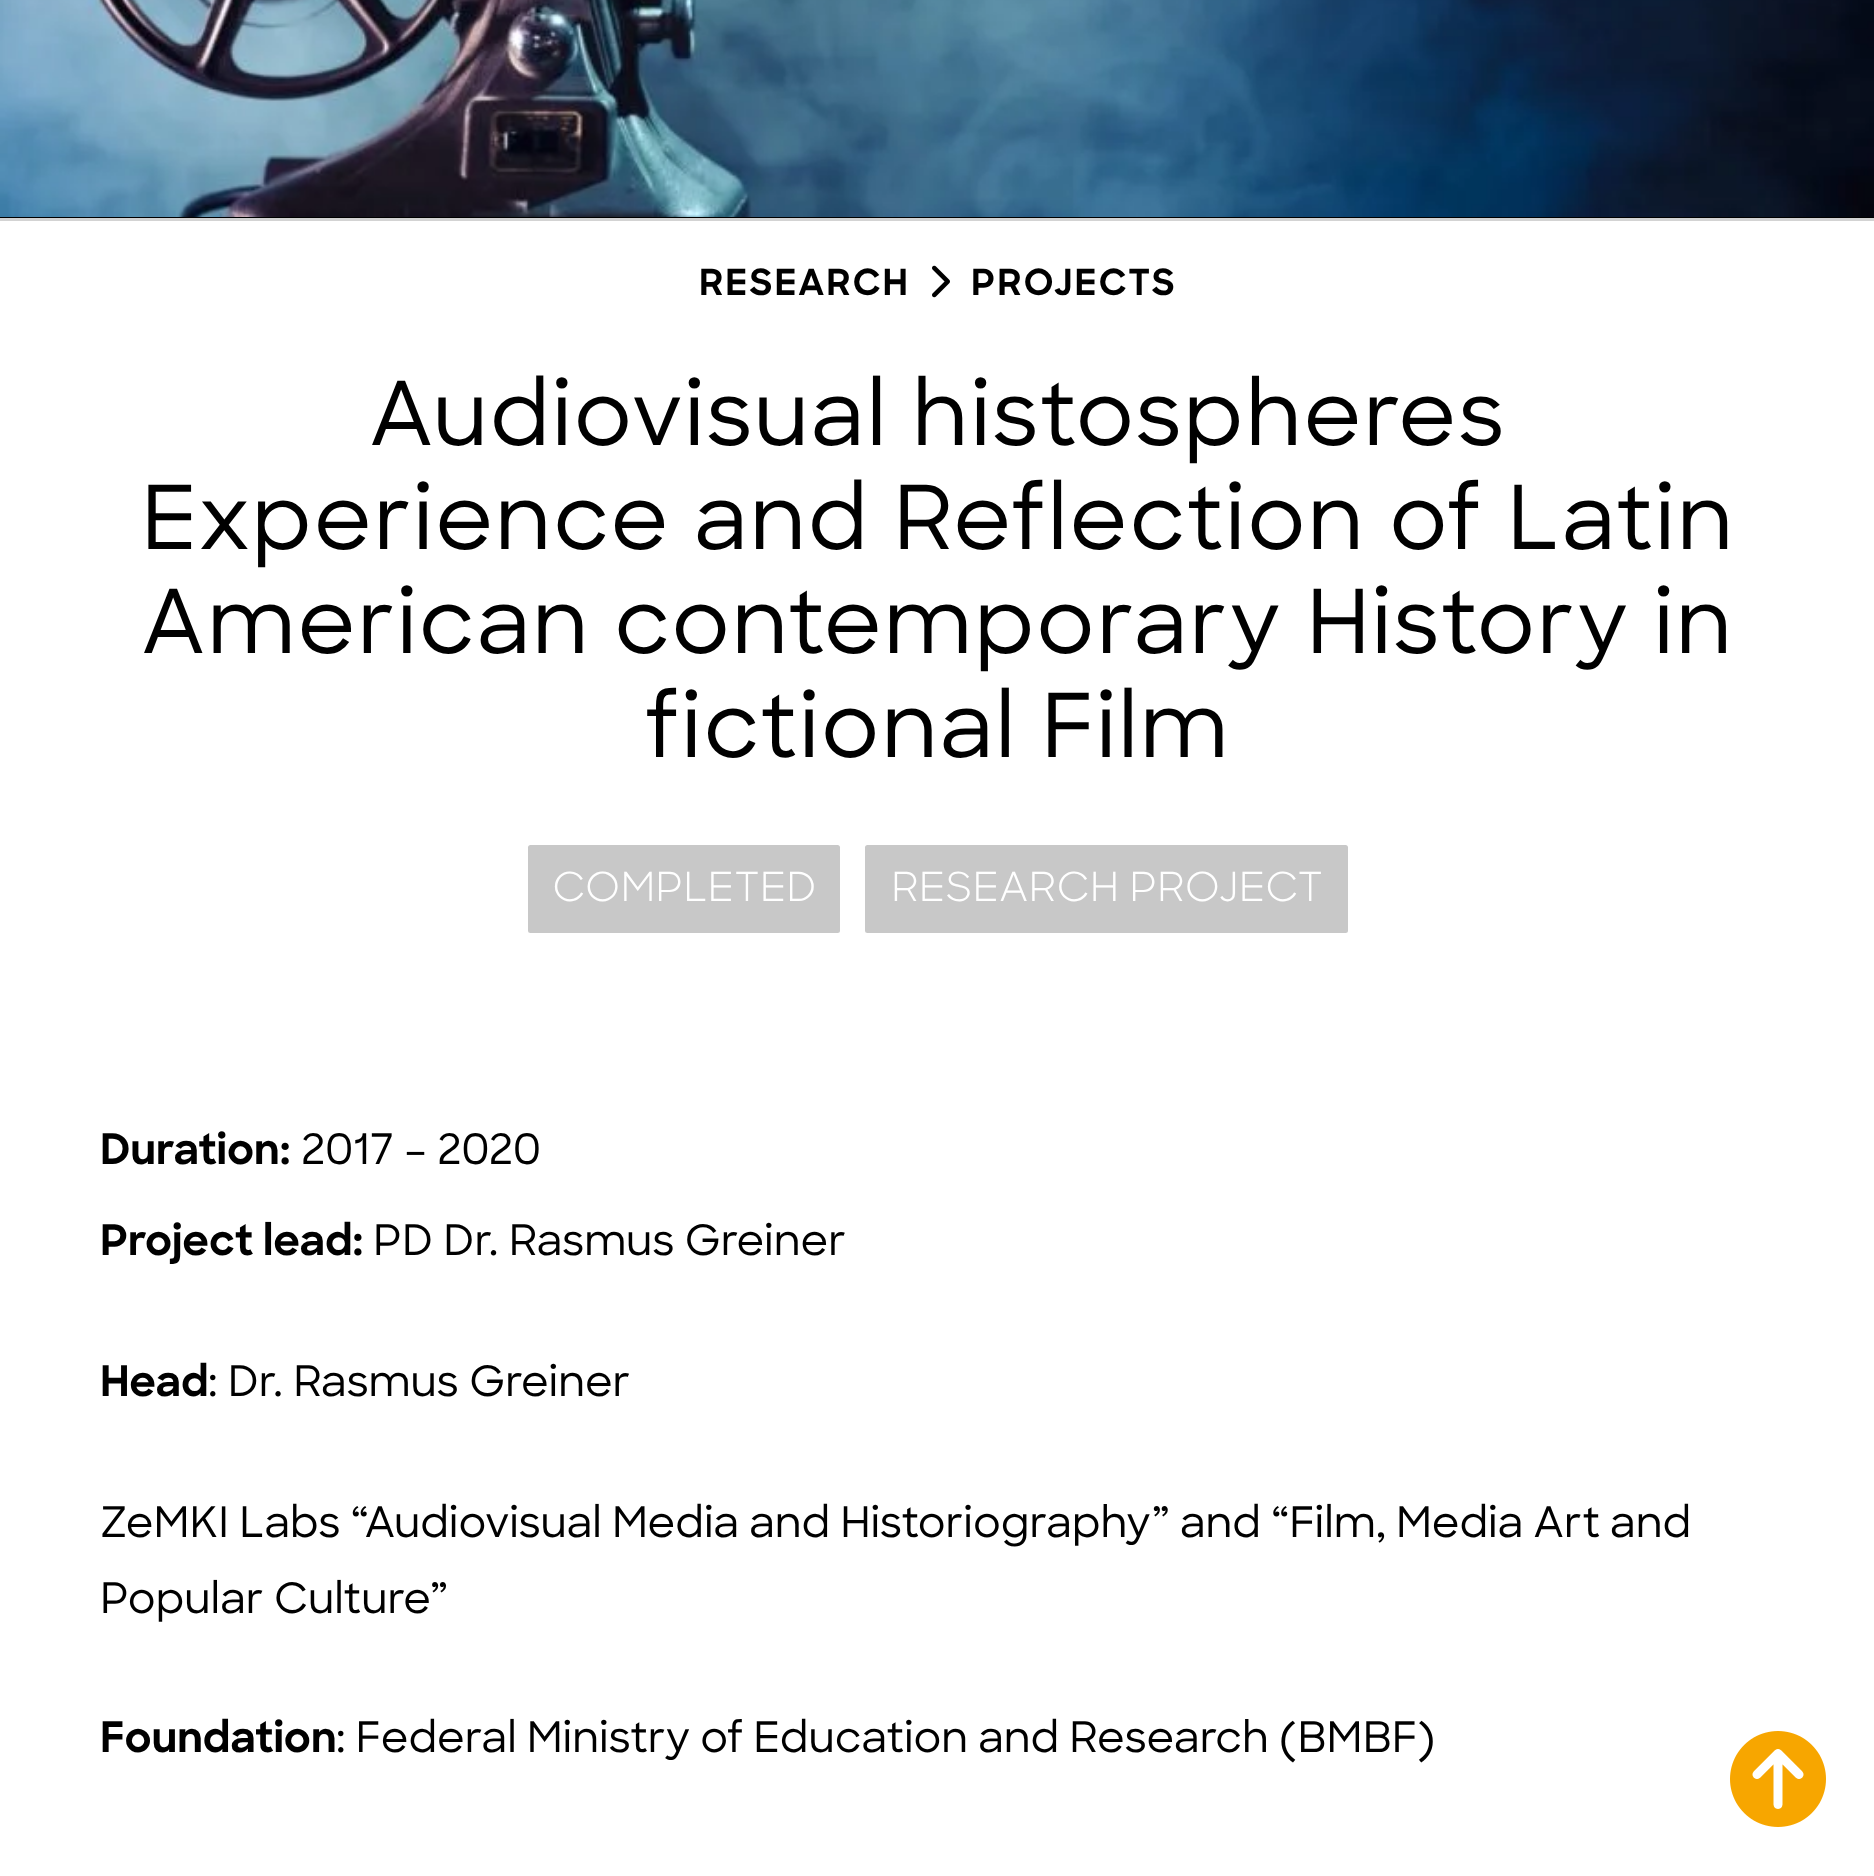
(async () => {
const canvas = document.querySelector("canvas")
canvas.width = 1874
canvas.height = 1876
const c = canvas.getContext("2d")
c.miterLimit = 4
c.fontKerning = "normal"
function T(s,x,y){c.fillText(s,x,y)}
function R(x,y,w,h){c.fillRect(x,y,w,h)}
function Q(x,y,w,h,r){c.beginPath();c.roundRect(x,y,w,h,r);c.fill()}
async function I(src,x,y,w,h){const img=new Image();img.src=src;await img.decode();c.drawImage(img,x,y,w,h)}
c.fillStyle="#fff"
R(0,0,1874,1876)
c.fillStyle="#000"
R(0,217,1874,1)
c.fillStyle="#d3d3d3"
R(0,218,1874,3)
await I("1.png",0,0,1874,217)
c.letterSpacing="2px"
c.font="bold 36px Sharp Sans"
c.fillStyle="#000"
T("RESEARCH",699,295)
await I("2.png",932,265,18,33)
T("PROJECTS",971,295)
c.font="500 88px Sharp Sans"
T("Audiovisual histospheres",369,445)
T("Experience and Reflection of Latin",141,549)
T("American contemporary History in",141,653)
T("fictional Film",645,757)
c.fillStyle="#c8c8c8"
Q(528,845,312,88,2.5)
c.letterSpacing="0px"
c.font="40px Sharp Sans"
c.fillStyle="#fff"
T("COMPLETED",552,901)
c.fillStyle="#c8c8c8"
Q(865,845,483,88,2.5)
c.fillStyle="#fff"
T("RESEARCH PROJECT",891,901)
c.font="bold 42px Sharp Sans"
c.fillStyle="#000"
T("Duration:",100,1164)
c.font="500 42px Sharp Sans"
T("2017 – 2020",301,1164)
c.font="bold 42px Sharp Sans"
T("Project lead:",100,1255)
c.font="500 42px Sharp Sans"
T("PD Dr. Rasmus Greiner",373,1255)
c.font="bold 42px Sharp Sans"
T("Head",100,1396)
c.font="500 42px Sharp Sans"
T(": Dr. Rasmus Greiner",208,1396)
c.wordSpacing="-0.25px"
T("ZeMKI Labs “Audiovisual Media and Historiography” and “Film, Media Art and",100,1537)
c.wordSpacing="0px"
T("Popular Culture”",100,1613)
c.font="bold 42px Sharp Sans"
T("Foundation",100,1752)
c.wordSpacing="-0.25px"
c.font="500 42px Sharp Sans"
T(": Federal Ministry of Education and Research (BMBF)",336,1752)
await I("3.png",1730,1731,96,96)
})()
